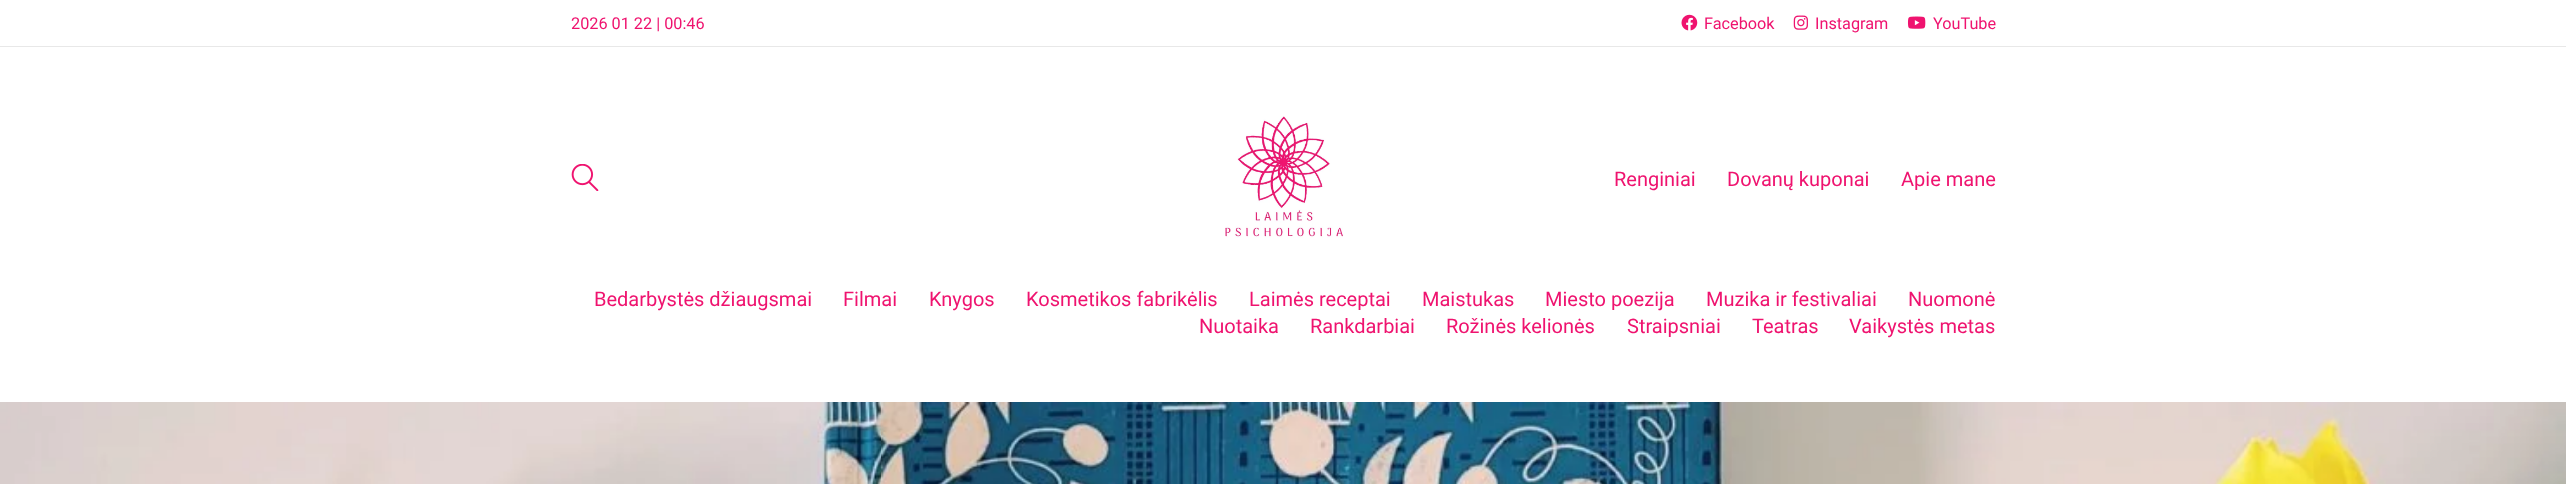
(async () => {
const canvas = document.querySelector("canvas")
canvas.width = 2566
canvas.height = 484
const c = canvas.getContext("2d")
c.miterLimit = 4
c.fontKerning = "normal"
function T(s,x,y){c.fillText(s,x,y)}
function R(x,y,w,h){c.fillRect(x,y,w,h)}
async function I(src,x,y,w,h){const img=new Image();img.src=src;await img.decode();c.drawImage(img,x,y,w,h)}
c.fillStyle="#fff"
R(0,0,2566,484)
c.fillStyle="#e8e8e8"
R(0,46,2566,1)
c.font="16.25px Roboto"
c.fillStyle="#ef136f"
T("2026 01 22 | 00:46",571,29)
await I("1.png",1681,14,17,17)
T("Facebook",1704,29)
await I("2.png",1793,15,15,15)
T("Instagram",1815,29)
await I("3.png",1907,16,19,13)
T("YouTube",1933,29)
await I("4.png",571,164,28,27)
await I("5.png",1225,116,118,122)
c.font="20px Roboto"
T("Renginiai",1614,186)
T("Dovanų kuponai",1727,186)
T("Apie mane",1901,186)
T("Bedarbystės džiaugsmai",594,306)
T("Filmai",843,306)
T("Knygos",929,306)
T("Kosmetikos fabrikėlis",1026,306)
T("Laimės receptai",1249,306)
T("Maistukas",1422,306)
T("Miesto poezija",1545,306)
T("Muzika ir festivaliai",1706,306)
T("Nuomonė",1908,306)
T("Nuotaika",1199,333)
T("Rankdarbiai",1310,333)
T("Rožinės kelionės",1446,333)
T("Straipsniai",1627,333)
T("Teatras",1752,333)
T("Vaikystės metas",1849,333)
await I("6.png",0,402,2566,82)
})()
